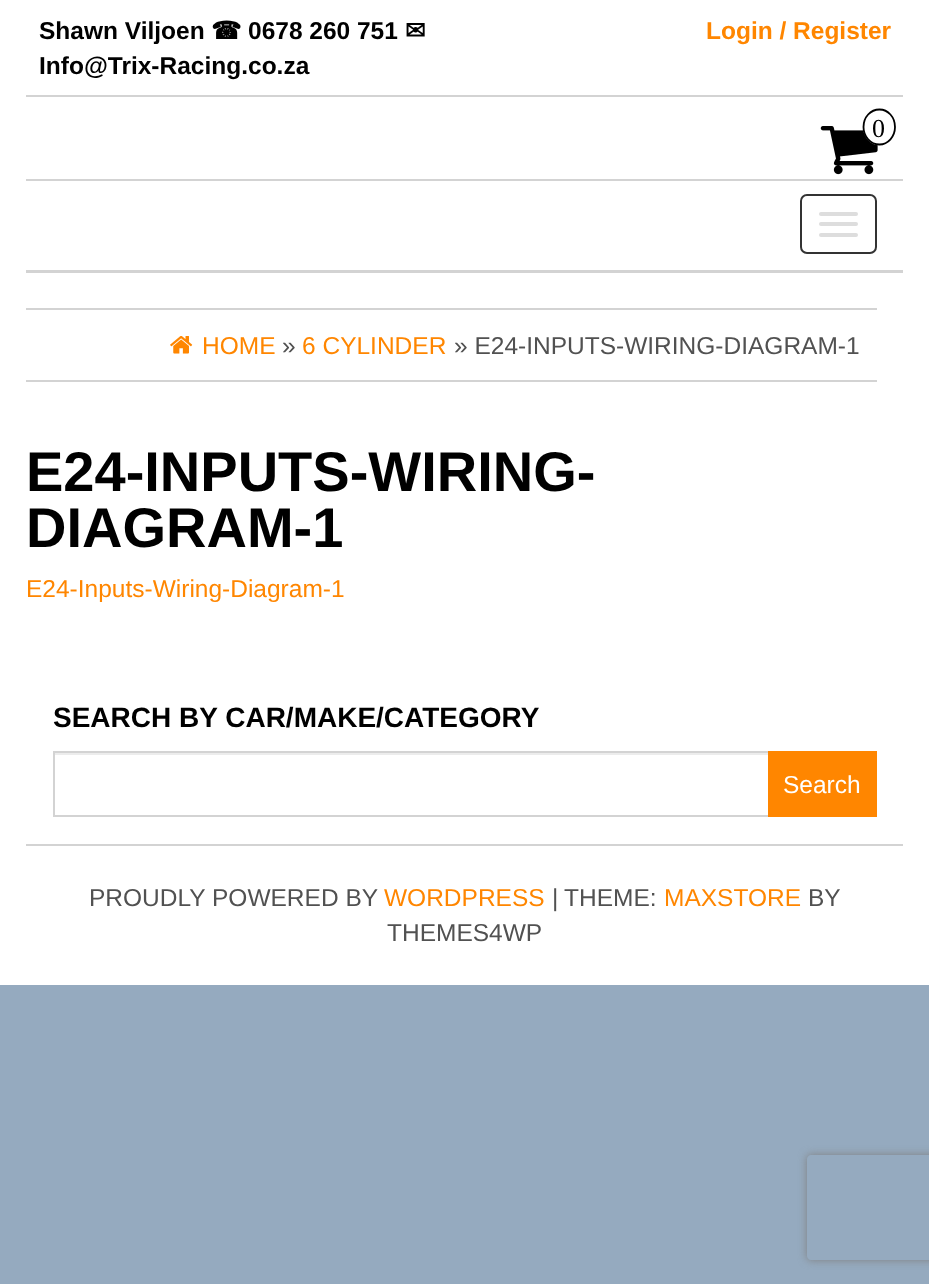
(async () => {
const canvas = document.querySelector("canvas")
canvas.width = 929
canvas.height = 1284
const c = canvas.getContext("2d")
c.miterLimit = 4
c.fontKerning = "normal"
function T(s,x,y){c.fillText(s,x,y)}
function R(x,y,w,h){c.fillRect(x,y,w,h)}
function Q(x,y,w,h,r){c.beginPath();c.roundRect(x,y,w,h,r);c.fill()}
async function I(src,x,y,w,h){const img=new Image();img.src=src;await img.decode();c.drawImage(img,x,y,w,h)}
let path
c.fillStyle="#95aabf"
R(0,0,929,1284)
c.fillStyle="#fff"
R(0,0,929,985)
c.fillStyle="#d3d3d3"
R(26,95,877,2)
c.font="bold 24.5px Liberation Sans"
c.fillStyle="#000"
T("Shawn Viljoen",39,39)
c.font="bold 24.5px DejaVu Sans"
T("☎",211,39)
c.font="bold 24.5px Liberation Sans"
T("0678 260 751",248,39)
c.font="bold 24.5px DejaVu Sans"
T("✉",405,39)
c.font="bold 24.5px Liberation Sans"
T("Info@Trix-Racing.co.za",39,74)
c.fillStyle="#ff8600"
T("Login / Register",706,39)
await I("1.png",820,126,58,49)
c.fillStyle="#fff"
c.beginPath()
c.ellipse(879.5,127,16.5,18.5,0,0,7)
c.fill()
path = new Path2D("M879.5 109.5c8.5 0 15.5 7.5 15.5 17.5c0 9.5-7 17.5-15.5 17.5c-9 0-16-8-16-17.5c0-10 7-17.5 16-17.5z")
c.strokeStyle="#000"
c.lineWidth=1.8
c.stroke(path)
c.font="26px Liberation Serif"
c.fillStyle="#000"
T("0",872,137)
c.fillStyle="#d3d3d3"
R(26,270,877,3)
R(26,179,877,2)
c.beginPath()
c.roundRect(801,195,75,58,6)
c.strokeStyle="#333"
c.lineWidth=2
c.stroke()
c.fillStyle="#ddd"
Q(819,212,39,4,2)
Q(819,222,39,4,2)
Q(819,233,39,4,2)
c.fillStyle="#d3d3d3"
R(26,308,851,2)
R(26,380,851,2)
await I("2.png",170,336,23,18)
c.font="24.5px Liberation Sans"
c.fillStyle="#ff8600"
T("HOME",202,354)
c.fillStyle="#515151"
T("»",282,354)
c.fillStyle="#ff8600"
T("6 CYLINDER",302,354)
c.fillStyle="#515151"
T("» E24-INPUTS-WIRING-DIAGRAM-1",454,354)
c.font="bold 56px Liberation Sans"
c.fillStyle="#000"
T("E24-INPUTS-WIRING-",26,491)
T("DIAGRAM-1",26,547)
c.font="24.5px Liberation Sans"
c.fillStyle="#ff8600"
T("E24-Inputs-Wiring-Diagram-1",26,597)
c.font="bold 28px Liberation Sans"
c.fillStyle="#000"
T("SEARCH BY CAR/MAKE/CATEGORY",53,727)
c.fillStyle="#ececec"
R(54,753,714,2)
c.strokeStyle="#d3d3d3"
c.strokeRect(54,752,822,64)
c.fillStyle="#ff8600"
R(768,751,109,66)
c.font="24.5px Liberation Sans"
c.fillStyle="#fff"
T("Search",783,793)
c.fillStyle="#d3d3d3"
R(26,844,877,2)
c.fillStyle="#515151"
T("PROUDLY POWERED BY",89,906)
c.fillStyle="#ff8600"
T("WORDPRESS",384,906)
c.fillStyle="#515151"
T("|",552,906)
T("THEME:",564,906)
c.fillStyle="#ff8600"
T("MAXSTORE",664,906)
c.fillStyle="#515151"
T("BY",808,906)
T("THEMES4WP",387,941)
c.save()
path = new Path2D("M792 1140h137v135h-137zm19 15h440c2 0 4 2 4 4v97c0 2-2 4-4 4h-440c-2 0-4-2-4-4v-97c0-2 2-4 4-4z")
c.clip(path,"evenodd")
c.fillStyle="#808080"
c.filter="blur(4.5px)"
c.beginPath()
c.roundRect(807,1155,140,105,4)
c.fill()
c.filter="none"
c.restore()
})()
